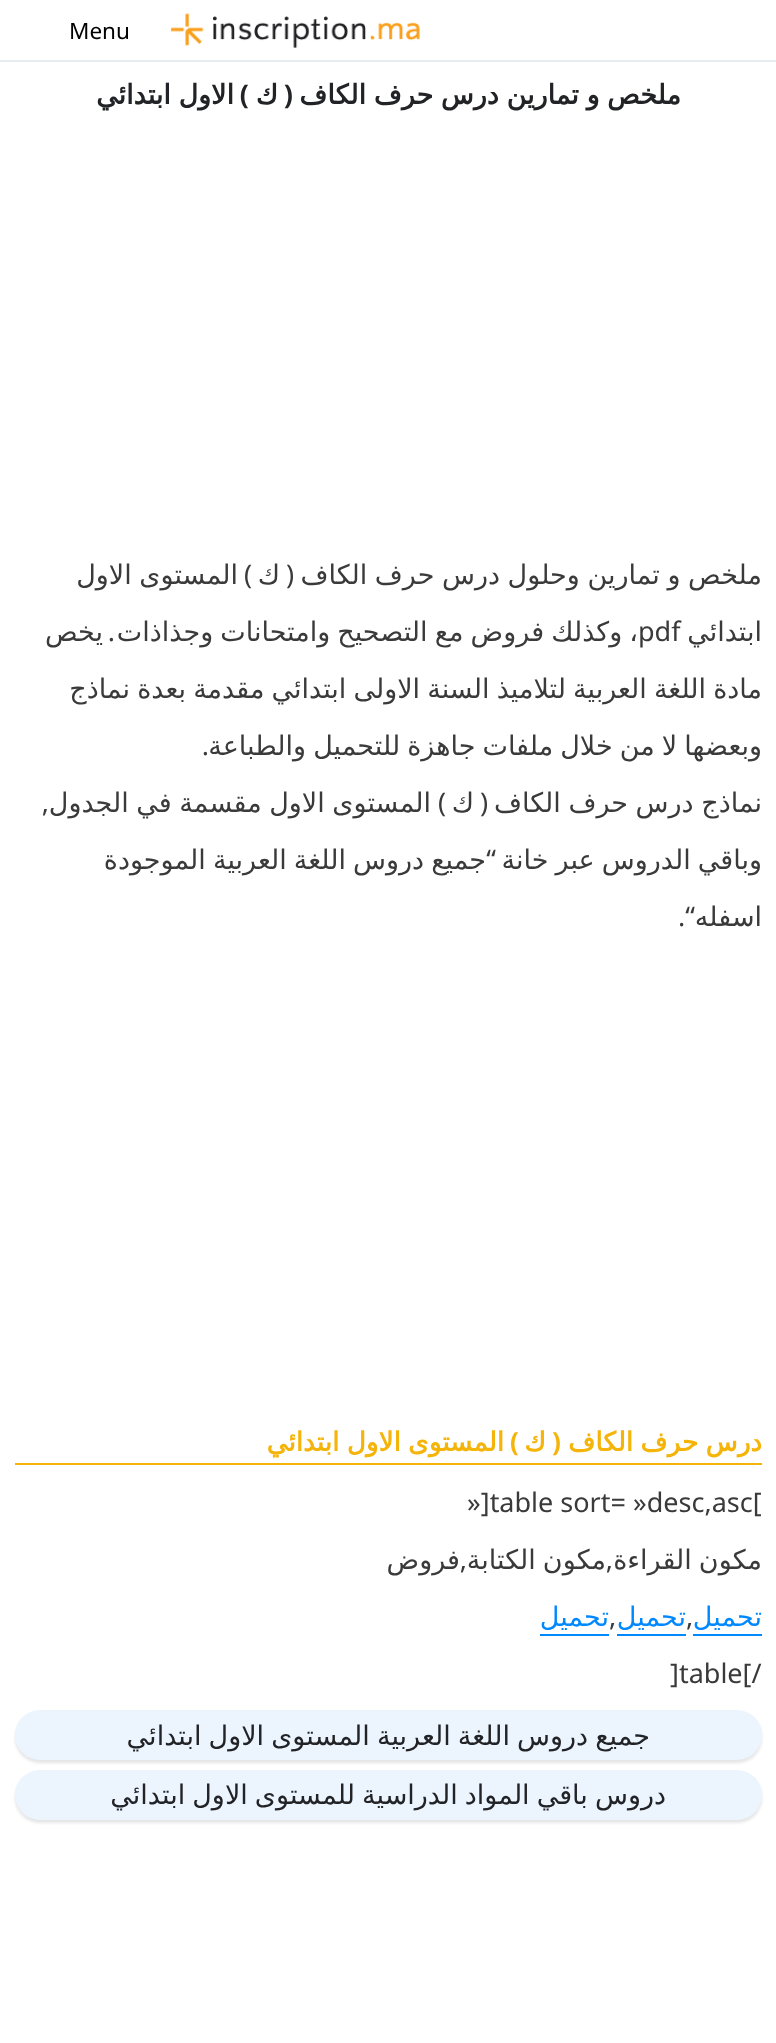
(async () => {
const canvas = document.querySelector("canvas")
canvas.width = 776
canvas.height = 2043
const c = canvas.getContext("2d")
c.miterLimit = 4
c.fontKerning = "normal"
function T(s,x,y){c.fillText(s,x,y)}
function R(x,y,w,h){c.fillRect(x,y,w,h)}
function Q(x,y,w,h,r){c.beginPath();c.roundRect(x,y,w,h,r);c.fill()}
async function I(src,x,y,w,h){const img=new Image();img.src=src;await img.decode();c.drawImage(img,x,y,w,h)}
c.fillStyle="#fff"
R(0,0,776,2043)
c.fillStyle="#e6ecf0"
R(0,60,776,2)
await I("1.png",170,13,250,35)
c.font="22.5px Noto Sans"
c.fillStyle="#000"
T("Menu",69,39)
c.wordSpacing="-1px"
c.direction="rtl"
c.font="bold 27px DejaVu Sans"
c.fillStyle="#222326"
T("ملخص و تمارين درس حرف الكاف",681,104)
c.wordSpacing="0px"
c.font="bold 27px Noto Sans"
T("(",293,104)
c.font="bold 27px DejaVu Sans"
T("ك",278,104)
c.font="bold 27px Noto Sans"
T(")",249,104)
c.wordSpacing="-1px"
c.font="bold 27px DejaVu Sans"
T("الاول ابتدائي",234,104)
c.font="27px DejaVu Sans"
c.fillStyle="#3a3a3a"
T("ملخص و تمارين وحلول درس حرف الكاف",762,584)
c.wordSpacing="0px"
c.font="27px Noto Sans"
T("(",294,584)
c.font="27px DejaVu Sans"
T("ك",280,584)
c.font="27px Noto Sans"
T(")",252,584)
c.wordSpacing="-1px"
c.font="27px DejaVu Sans"
T("المستوى الاول",238,584)
c.wordSpacing="0px"
T("ابتدائي",762,641)
c.wordSpacing="-1.5px"
T("، وكذلك فروض مع التصحيح وامتحانات وجذاذات",638,641)
c.wordSpacing="0px"
c.direction="ltr"
c.font="27px Noto Sans"
T("pdf",638,641)
c.direction="rtl"
T(".",115,641)
c.font="27px DejaVu Sans"
T("يخص",103,641)
c.wordSpacing="-1.5px"
T("مادة اللغة العربية لتلاميذ السنة الاولى ابتدائي مقدمة بعدة نماذج",762,698)
T("وبعضها لا من خلال ملفات جاهزة للتحميل والطباعة",762,755)
c.wordSpacing="0px"
c.font="27px Noto Sans"
T(".",209,755)
c.wordSpacing="-1px"
c.font="27px DejaVu Sans"
T("نماذج درس حرف الكاف",762,812)
c.wordSpacing="0px"
c.font="27px Noto Sans"
T("(",488,812)
c.font="27px DejaVu Sans"
T("ك",474,812)
c.font="27px Noto Sans"
T(")",446,812)
c.wordSpacing="-1px"
c.font="27px DejaVu Sans"
T("المستوى الاول مقسمة في الجدول",431,812)
c.wordSpacing="0px"
c.font="27px Noto Sans"
T(",",49,812)
c.wordSpacing="-1.5px"
c.font="27px DejaVu Sans"
T("وباقي الدروس عبر خانة",762,869)
T("جميع دروس اللغة العربية الموجودة",486,869)
c.wordSpacing="0px"
c.font="27px Noto Sans"
T("“",496,869)
c.font="27px DejaVu Sans"
T("اسفله",762,926)
c.font="27px Noto Sans"
T("“.",695,926)
c.fillStyle="#f5b40a"
R(15,1463,747,2)
c.wordSpacing="-1px"
c.font="bold 26.25px DejaVu Sans"
T("درس حرف الكاف",762,1451)
c.wordSpacing="0px"
c.font="bold 26.25px Noto Sans"
T("(",561,1451)
c.font="bold 26.25px DejaVu Sans"
T("ك",546,1451)
c.font="bold 26.25px Noto Sans"
T(")",519,1451)
c.wordSpacing="-1px"
c.font="bold 26.25px DejaVu Sans"
T("المستوى الاول ابتدائي",504,1451)
c.wordSpacing="0px"
c.direction="ltr"
c.font="27px Noto Sans"
c.fillStyle="#3a3a3a"
T("»]table sort= »desc,asc[",467,1512)
c.wordSpacing="-1.5px"
c.direction="rtl"
c.font="27px DejaVu Sans"
T("مكون القراءة",762,1569)
c.wordSpacing="0px"
c.font="27px Noto Sans"
T(",",613,1569)
c.wordSpacing="-1.5px"
c.font="27px DejaVu Sans"
T("مكون الكتابة",606,1569)
c.wordSpacing="0px"
c.font="27px Noto Sans"
T(",",467,1569)
c.font="27px DejaVu Sans"
T("فروض",460,1569)
c.fillStyle="#08f"
T("تحميل",762,1626)
R(693,1634,69,2)
c.direction="ltr"
c.font="27px Noto Sans"
c.fillStyle="#3a3a3a"
T(",",686,1626)
c.direction="rtl"
c.font="27px DejaVu Sans"
c.fillStyle="#08f"
T("تحميل",686,1626)
R(617,1634,69,2)
c.direction="ltr"
c.font="27px Noto Sans"
c.fillStyle="#3a3a3a"
T(",",609,1626)
c.direction="rtl"
c.font="27px DejaVu Sans"
c.fillStyle="#08f"
T("تحميل",609,1626)
R(540,1634,69,2)
c.direction="ltr"
c.font="27px Noto Sans"
c.fillStyle="#3a3a3a"
T("]table[/",670,1683)
c.fillStyle="#0000001a"
c.filter="blur(1.5px)"
c.beginPath()
c.roundRect(15,1713,747,50,25)
c.fill()
c.filter="none"
c.fillStyle="#ecf4fe"
Q(15,1710,747,50,25)
c.wordSpacing="-1.5px"
c.direction="rtl"
c.font="27px DejaVu Sans"
c.fillStyle="#222326"
T("جميع دروس اللغة العربية المستوى الاول ابتدائي",650,1745)
c.fillStyle="#0000001a"
c.filter="blur(1.5px)"
c.beginPath()
c.roundRect(15,1773,747,50,25)
c.fill()
c.filter="none"
c.fillStyle="#ecf4fe"
Q(15,1770,747,50,25)
c.fillStyle="#222326"
T("دروس باقي المواد الدراسية للمستوى الاول ابتدائي",666,1804)
})()
